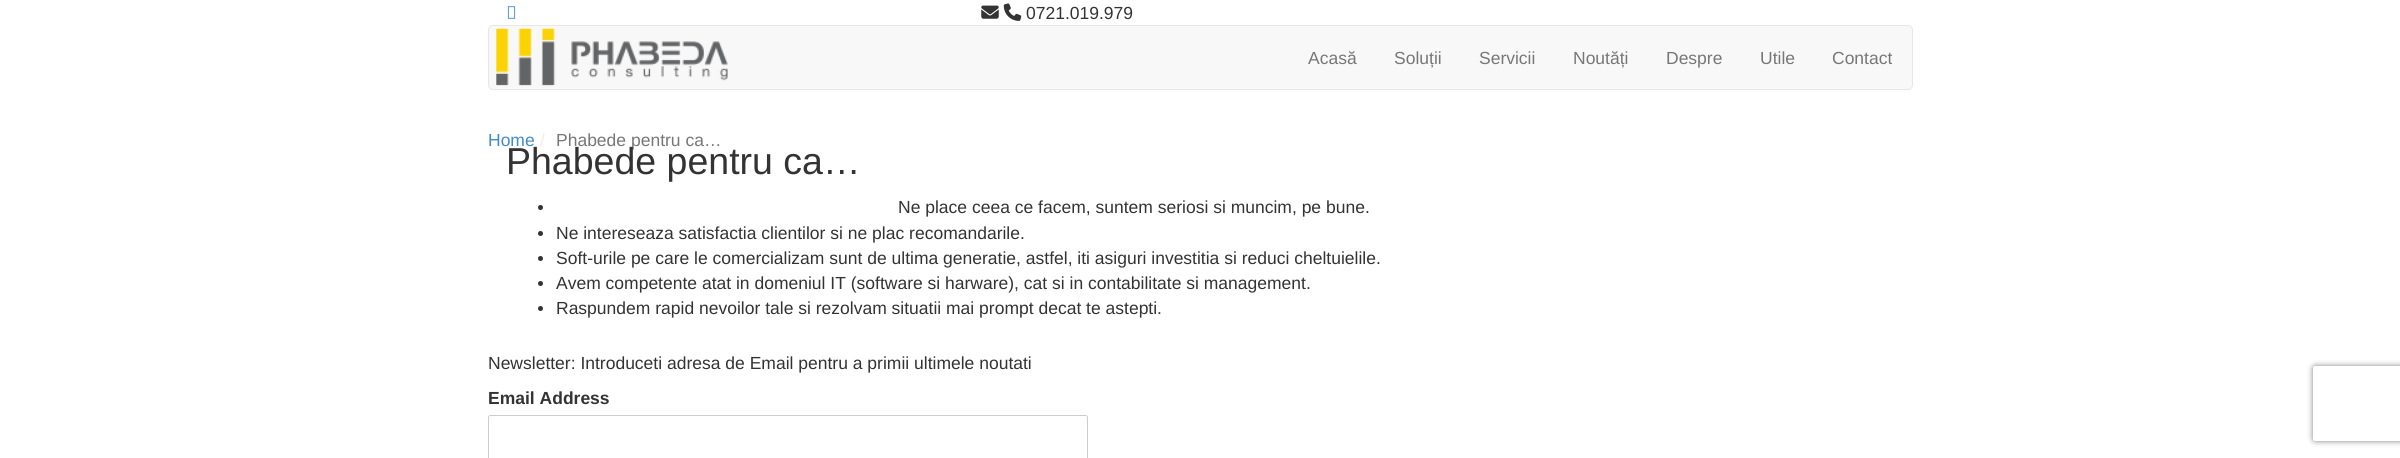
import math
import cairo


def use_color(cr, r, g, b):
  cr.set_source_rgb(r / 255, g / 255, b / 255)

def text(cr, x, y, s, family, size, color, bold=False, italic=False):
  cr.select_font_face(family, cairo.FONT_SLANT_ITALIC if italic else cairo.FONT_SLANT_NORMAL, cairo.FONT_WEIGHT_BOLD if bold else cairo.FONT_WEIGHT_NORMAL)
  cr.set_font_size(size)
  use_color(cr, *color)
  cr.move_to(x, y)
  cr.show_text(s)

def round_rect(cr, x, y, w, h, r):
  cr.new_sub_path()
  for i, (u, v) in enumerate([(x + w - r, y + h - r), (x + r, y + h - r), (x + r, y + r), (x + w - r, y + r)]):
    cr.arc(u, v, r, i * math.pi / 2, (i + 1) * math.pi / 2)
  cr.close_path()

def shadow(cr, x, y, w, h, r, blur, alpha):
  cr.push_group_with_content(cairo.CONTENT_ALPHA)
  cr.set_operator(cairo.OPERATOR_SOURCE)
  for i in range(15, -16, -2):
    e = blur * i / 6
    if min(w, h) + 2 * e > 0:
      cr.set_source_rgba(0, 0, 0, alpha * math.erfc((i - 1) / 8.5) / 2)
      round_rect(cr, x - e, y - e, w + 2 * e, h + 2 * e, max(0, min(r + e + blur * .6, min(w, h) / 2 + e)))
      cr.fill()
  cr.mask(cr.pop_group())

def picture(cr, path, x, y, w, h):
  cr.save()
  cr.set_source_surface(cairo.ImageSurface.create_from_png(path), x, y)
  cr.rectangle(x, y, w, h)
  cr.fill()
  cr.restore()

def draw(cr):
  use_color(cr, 255, 255, 255)
  cr.paint()
  picture(cr, "img_01.png", 507, 6, 9, 13)
  picture(cr, "img_02.png", 981, 5, 18, 14)
  picture(cr, "img_03.png", 1003, 3, 19, 18)
  use_color(cr, 248, 248, 248)
  round_rect(cr, 488.5, 25.5, 1424, 64, 4.5)
  cr.fill_preserve()
  use_color(cr, 231, 231, 231)
  cr.set_line_width(1)
  cr.stroke()
  picture(cr, "img_04.png", 496, 28, 232, 58)
  use_color(cr, 51, 51, 51)
  cr.arc(540.5, 207.5, 2.5, 0, 2 * math.pi)
  cr.fill()
  cr.arc(540.5, 233.5, 2.5, 0, 2 * math.pi)
  cr.fill()
  cr.arc(540.5, 258.5, 2.5, 0, 2 * math.pi)
  cr.fill()
  cr.arc(540.5, 283.5, 2.5, 0, 2 * math.pi)
  cr.fill()
  cr.arc(540.5, 308.5, 2.5, 0, 2 * math.pi)
  cr.fill()
  round_rect(cr, 488.5, 415.5, 599, 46, 2)
  use_color(cr, 204, 204, 204)
  cr.stroke()
  cr.save()
  cr.set_fill_rule(cairo.FILL_RULE_EVEN_ODD)
  cr.new_path()
  cr.move_to(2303, 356)
  cr.line_to(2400, 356)
  cr.line_to(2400, 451)
  cr.line_to(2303, 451)
  cr.close_path()
  cr.move_to(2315.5, 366)
  cr.line_to(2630.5, 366)
  cr.curve_to(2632, 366, 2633, 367, 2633, 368.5)
  cr.line_to(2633, 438.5)
  cr.curve_to(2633, 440, 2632, 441, 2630.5, 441)
  cr.line_to(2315.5, 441)
  cr.curve_to(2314, 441, 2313, 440, 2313, 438.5)
  cr.line_to(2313, 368.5)
  cr.curve_to(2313, 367, 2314, 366, 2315.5, 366)
  cr.close_path()
  cr.clip()
  use_color(cr, 128, 128, 128)
  shadow(cr, 2313, 366, 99, 75, 2.5, 3, 1)
  cr.restore()
  text(cr, 1026, 19, "0721.019.979", "Liberation Sans", 17.5, (51, 51, 51))
  text(cr, 1308, 64, "Acasă", "Liberation Sans", 17.5, (119, 119, 119))
  text(cr, 1394, 64, "Soluții", "Liberation Sans", 17.5, (119, 119, 119))
  text(cr, 1479, 64, "Servicii", "Liberation Sans", 17.5, (119, 119, 119))
  text(cr, 1573, 64, "Noutăți", "Liberation Sans", 17.5, (119, 119, 119))
  text(cr, 1666, 64, "Despre", "Liberation Sans", 17.5, (119, 119, 119))
  text(cr, 1760, 64, "Utile", "Liberation Sans", 17.5, (119, 119, 119))
  text(cr, 1832, 64, "Contact", "Liberation Sans", 17.5, (119, 119, 119))
  text(cr, 488, 146, "Home", "Liberation Sans", 17.5, (66, 139, 202))
  text(cr, 540, 146, "/", "Liberation Sans", 17.5, (237, 237, 237))
  text(cr, 556, 146, "Phabede pentru ca…", "Liberation Sans", 17.5, (119, 119, 119))
  text(cr, 506, 174, "Phabede pentru ca…", "Liberation Sans", 37.5, (51, 51, 51))
  text(cr, 898, 213, "Ne place ceea ce facem, suntem seriosi si muncim, pe bune.", "Liberation Sans", 17.5, (51, 51, 51))
  text(cr, 556, 239, "Ne intereseaza satisfactia clientilor si ne plac recomandarile.", "Liberation Sans", 17.5, (51, 51, 51))
  text(cr, 556, 264, "Soft-urile pe care le comercializam sunt de ultima generatie, astfel, iti asiguri investitia si reduci cheltuielile.", "Liberation Sans", 17.5, (51, 51, 51))
  text(cr, 556, 289, "Avem competente atat in domeniul IT (software si harware), cat si in contabilitate si management.", "Liberation Sans", 17.5, (51, 51, 51))
  text(cr, 556, 314, "Raspundem rapid nevoilor tale si rezolvam situatii mai prompt decat te astepti.", "Liberation Sans", 17.5, (51, 51, 51))
  text(cr, 488, 369, "Newsletter: Introduceti adresa de Email pentru a primii ultimele noutati", "Liberation Sans", 17.5, (51, 51, 51))
  text(cr, 488, 404, "Email Address", "Liberation Sans", 17.5, (51, 51, 51), bold=True)


surface = cairo.ImageSurface(cairo.FORMAT_RGB24, 2400, 458)
cr = cairo.Context(surface)
options = cairo.FontOptions()
options.set_hint_metrics(cairo.HINT_METRICS_OFF)
options.set_hint_style(cairo.HINT_STYLE_NONE)
cr.set_font_options(options)
cr.set_miter_limit(4)
draw(cr)
surface.write_to_png("out.png")
